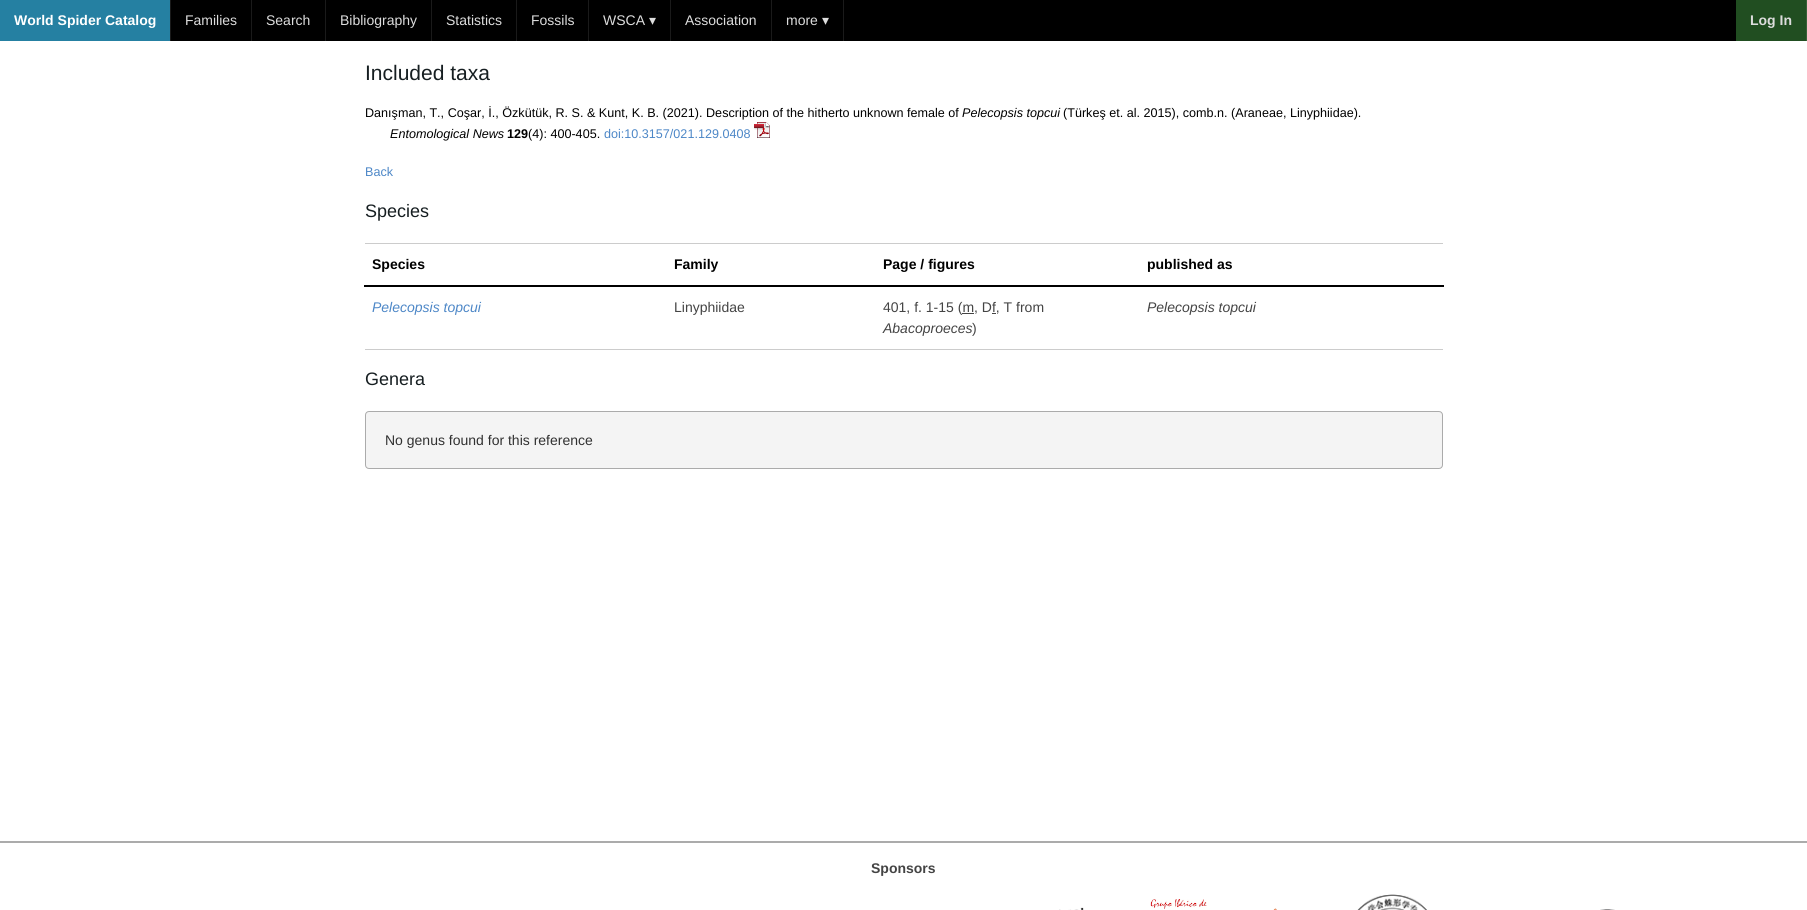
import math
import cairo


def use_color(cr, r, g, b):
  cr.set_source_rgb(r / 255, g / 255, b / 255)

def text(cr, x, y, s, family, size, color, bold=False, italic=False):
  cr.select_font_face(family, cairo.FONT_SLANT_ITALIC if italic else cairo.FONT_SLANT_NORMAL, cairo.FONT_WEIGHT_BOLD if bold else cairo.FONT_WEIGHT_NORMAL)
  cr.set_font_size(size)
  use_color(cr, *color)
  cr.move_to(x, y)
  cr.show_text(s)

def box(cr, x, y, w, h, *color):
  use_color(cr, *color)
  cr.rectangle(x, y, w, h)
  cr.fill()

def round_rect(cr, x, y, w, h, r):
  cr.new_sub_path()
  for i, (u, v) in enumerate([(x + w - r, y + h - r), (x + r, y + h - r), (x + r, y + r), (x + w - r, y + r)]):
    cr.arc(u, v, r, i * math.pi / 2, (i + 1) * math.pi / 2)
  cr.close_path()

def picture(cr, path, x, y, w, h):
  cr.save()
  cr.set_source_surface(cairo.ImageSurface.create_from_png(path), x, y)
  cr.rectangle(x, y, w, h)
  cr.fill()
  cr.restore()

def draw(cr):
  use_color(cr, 255, 255, 255)
  cr.paint()
  box(cr, 171, 0, 1565, 41, 0, 0, 0)
  box(cr, 170, 0, 1, 41, 26, 26, 26)
  box(cr, 0, 0, 170, 41, 37, 128, 162)
  box(cr, 251, 0, 1, 41, 26, 26, 26)
  box(cr, 325, 0, 1, 41, 26, 26, 26)
  box(cr, 431, 0, 1, 41, 26, 26, 26)
  box(cr, 516, 0, 1, 41, 26, 26, 26)
  box(cr, 588, 0, 1, 41, 26, 26, 26)
  box(cr, 670, 0, 1, 41, 26, 26, 26)
  box(cr, 771, 0, 1, 41, 26, 26, 26)
  box(cr, 843, 0, 1, 41, 26, 26, 26)
  box(cr, 1736, 0, 70, 41, 33, 78, 33)
  box(cr, 1806, 0, 1, 41, 55, 96, 55)
  picture(cr, "img_01.png", 754, 122, 16, 16)
  box(cr, 365, 243, 1078, 1, 204, 204, 204)
  box(cr, 365, 349, 1078, 1, 204, 204, 204)
  box(cr, 364, 285, 1080, 2, 0, 0, 0)
  box(cr, 962, 313, 12, 1, 68, 68, 68)
  box(cr, 992, 313, 4, 1, 68, 68, 68)
  use_color(cr, 244, 244, 244)
  round_rect(cr, 365, 411, 1078, 58, 4)
  cr.fill()
  round_rect(cr, 365.5, 411.5, 1077, 57, 3.5)
  cr.set_source_rgba(0, 0, 0, 0.3)
  cr.set_line_width(1)
  cr.stroke()
  box(cr, 0, 841, 1807, 2, 171, 171, 171)
  picture(cr, "img_02.png", 1059, 907, 25, 3)
  picture(cr, "img_03.png", 1150, 899, 57, 10)
  picture(cr, "img_04.png", 1273, 908, 4, 2)
  picture(cr, "img_05.png", 1357, 894, 70, 16)
  picture(cr, "img_06.png", 1600, 909, 15, 1)
  text(cr, 14, 25, "World Spider Catalog", "Liberation Sans", 14, (255, 255, 255), bold=True)
  text(cr, 185, 25, "Families", "Liberation Sans", 14, (221, 221, 221))
  text(cr, 266, 25, "Search", "Liberation Sans", 14, (221, 221, 221))
  text(cr, 340, 25, "Bibliography", "Liberation Sans", 14, (221, 221, 221))
  text(cr, 446, 25, "Statistics", "Liberation Sans", 14, (221, 221, 221))
  text(cr, 531, 25, "Fossils", "Liberation Sans", 14, (221, 221, 221))
  text(cr, 603, 25, "WSCA", "Liberation Sans", 14, (221, 221, 221))
  text(cr, 649, 25, "▾", "DejaVu Sans", 14, (221, 221, 221))
  text(cr, 685, 25, "Association", "Liberation Sans", 14, (221, 221, 221))
  text(cr, 786, 25, "more", "Liberation Sans", 14, (221, 221, 221))
  text(cr, 822, 25, "▾", "DejaVu Sans", 14, (221, 221, 221))
  text(cr, 1750, 25, "Log In", "Liberation Sans", 14, (221, 221, 221), bold=True)
  text(cr, 365, 80, "Included taxa", "Liberation Sans", 21, (22, 30, 33))
  text(cr, 365, 117, "Danışman, T., Coşar, İ., Özkütük, R. S. & Kunt, K. B. (2021). Description of the hitherto unknown female of", "Liberation Sans", 12.6, (0, 0, 0))
  text(cr, 962, 117, "Pelecopsis topcui", "Liberation Sans", 12.6, (0, 0, 0), italic=True)
  text(cr, 1063, 117, "(Türkeş et. al. 2015), comb.n. (Araneae, Linyphiidae).", "Liberation Sans", 12.6, (0, 0, 0))
  text(cr, 390, 138, "Entomological News", "Liberation Sans", 12.6, (0, 0, 0), italic=True)
  text(cr, 507, 138, "129", "Liberation Sans", 12.6, (0, 0, 0), bold=True)
  text(cr, 528, 138, "(4): 400-405.", "Liberation Sans", 12.6, (0, 0, 0))
  text(cr, 604, 138, "doi:10.3157/021.129.0408", "Liberation Sans", 12.6, (77, 135, 199))
  text(cr, 365, 176, "Back", "Liberation Sans", 12.6, (77, 135, 199))
  text(cr, 365, 217, "Species", "Liberation Sans", 18, (22, 30, 33))
  text(cr, 372, 269, "Species", "Liberation Sans", 14, (0, 0, 0), bold=True)
  text(cr, 674, 269, "Family", "Liberation Sans", 14, (0, 0, 0), bold=True)
  text(cr, 883, 269, "Page / figures", "Liberation Sans", 14, (0, 0, 0), bold=True)
  text(cr, 1147, 269, "published as", "Liberation Sans", 14, (0, 0, 0), bold=True)
  text(cr, 372, 312, "Pelecopsis topcui", "Liberation Sans", 14, (77, 135, 199), italic=True)
  text(cr, 674, 312, "Linyphiidae", "Liberation Sans", 14, (68, 68, 68))
  text(cr, 883, 312, "401, f. 1-15 (m, Df, T from", "Liberation Sans", 14, (68, 68, 68))
  text(cr, 883, 333, "Abacoproeces", "Liberation Sans", 14, (68, 68, 68), italic=True)
  text(cr, 972, 333, ")", "Liberation Sans", 14, (68, 68, 68))
  text(cr, 1147, 312, "Pelecopsis topcui", "Liberation Sans", 14, (68, 68, 68), italic=True)
  text(cr, 365, 385, "Genera", "Liberation Sans", 18, (22, 30, 33))
  text(cr, 385, 445, "No genus found for this reference", "Liberation Sans", 14, (49, 49, 49))
  text(cr, 871, 873, "Sponsors", "Liberation Sans", 14, (68, 68, 68), bold=True)


surface = cairo.ImageSurface(cairo.FORMAT_RGB24, 1807, 910)
cr = cairo.Context(surface)
options = cairo.FontOptions()
options.set_hint_metrics(cairo.HINT_METRICS_OFF)
options.set_hint_style(cairo.HINT_STYLE_NONE)
cr.set_font_options(options)
cr.set_miter_limit(4)
draw(cr)
surface.write_to_png("out.png")
